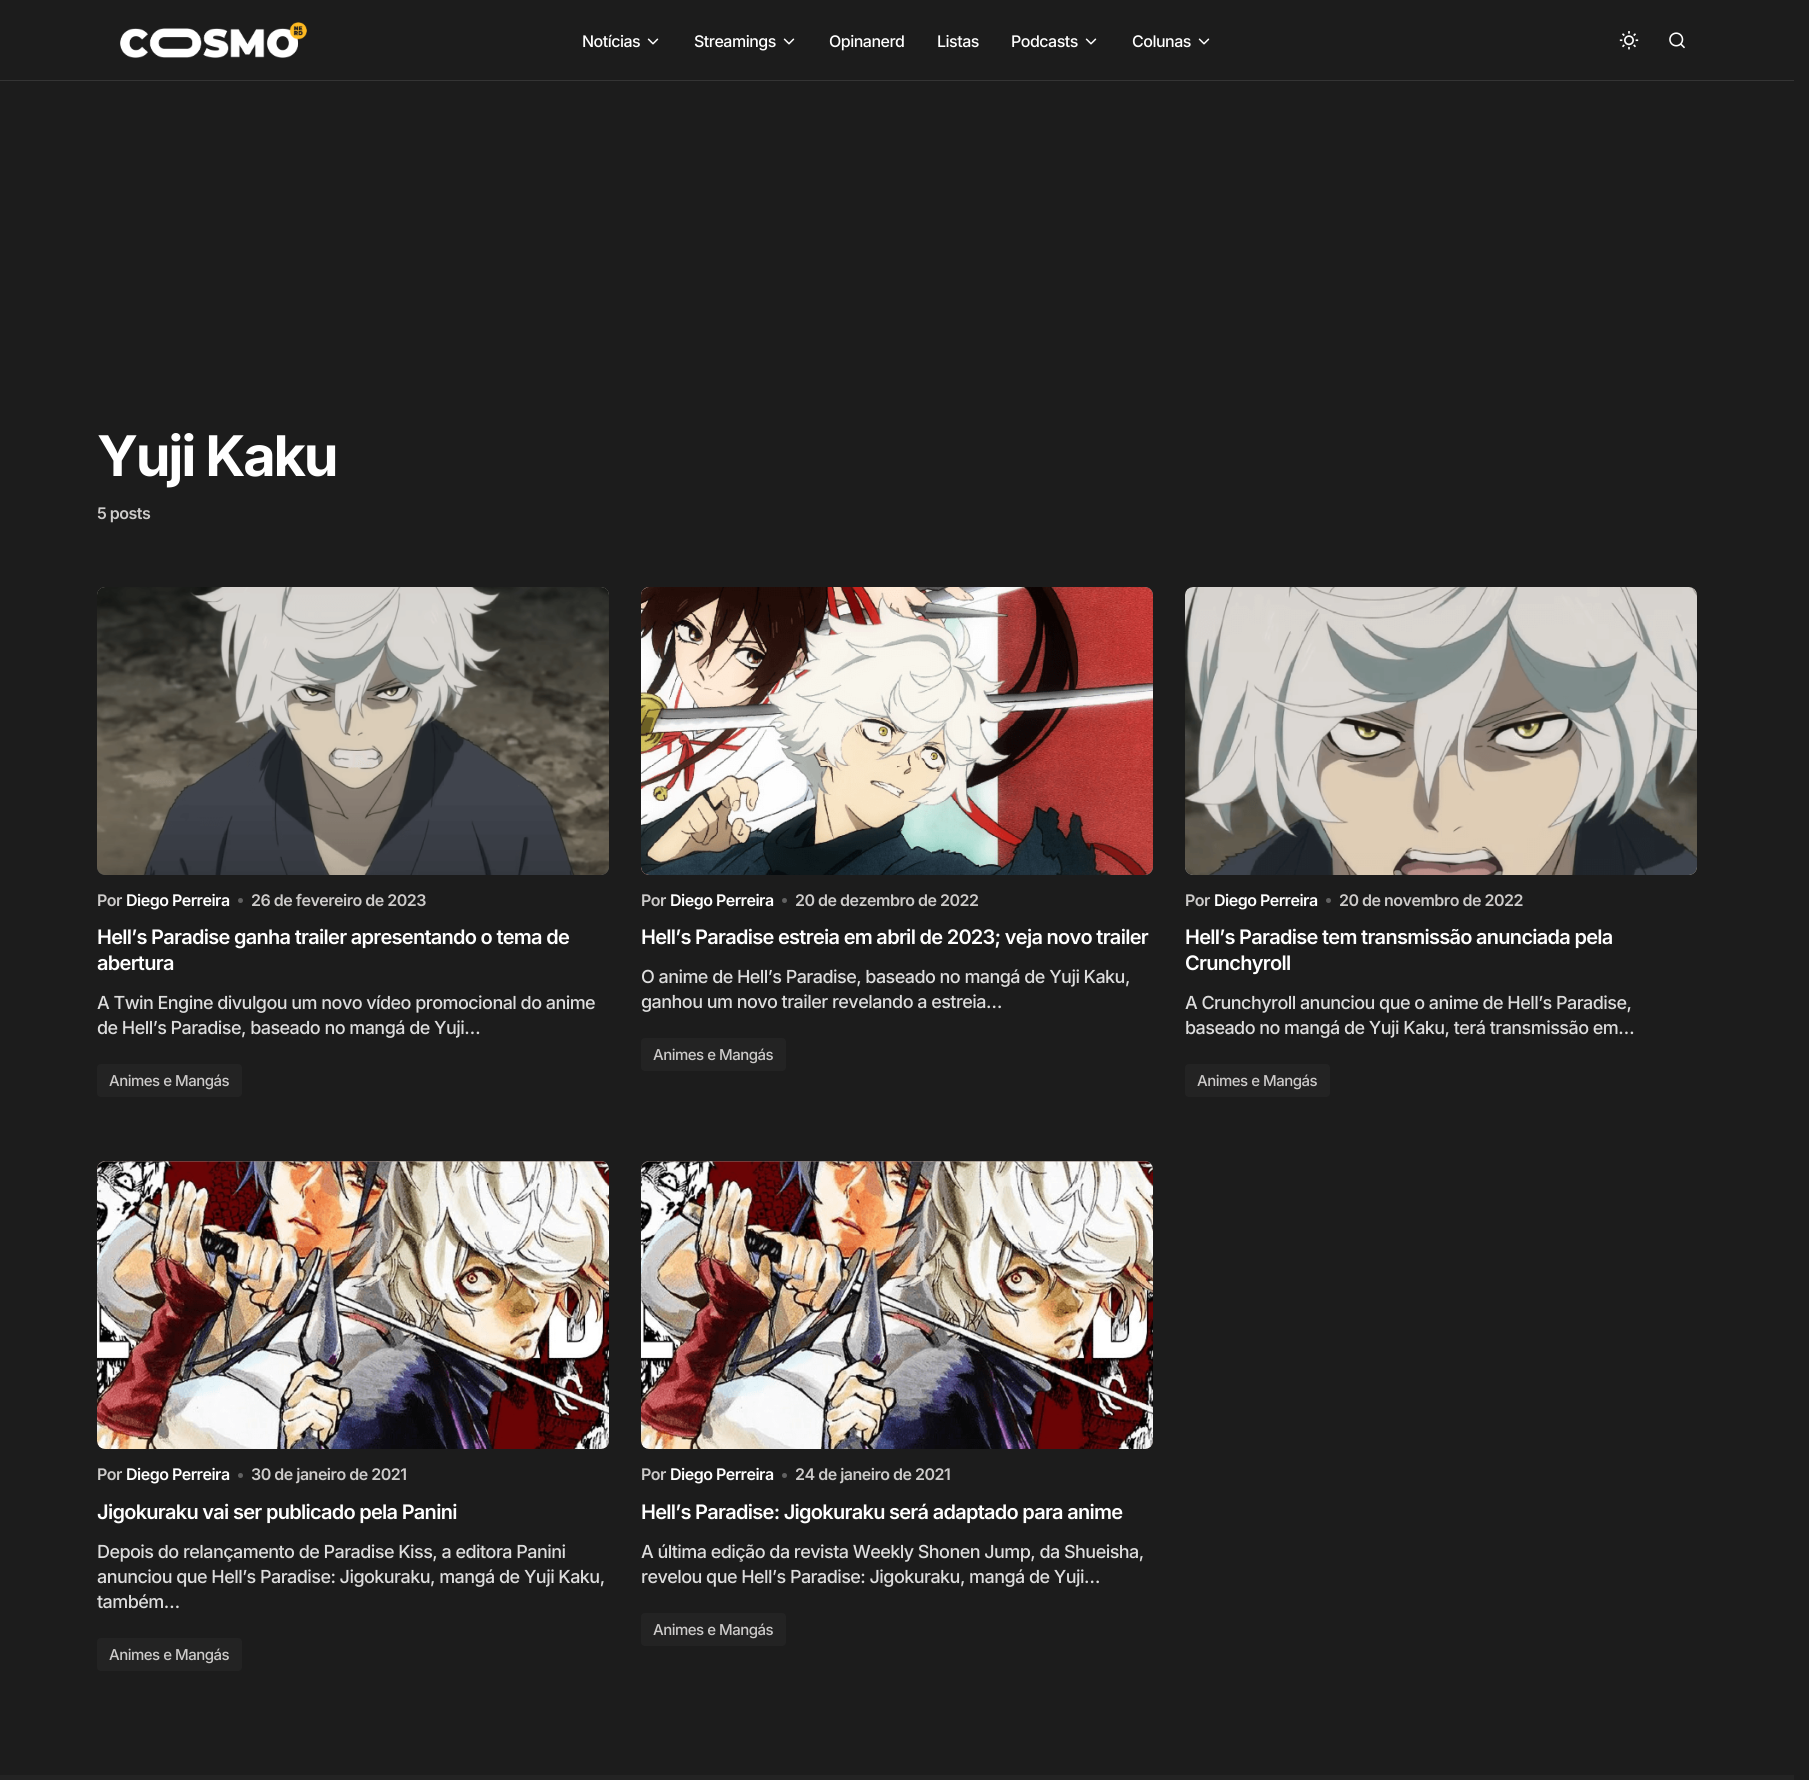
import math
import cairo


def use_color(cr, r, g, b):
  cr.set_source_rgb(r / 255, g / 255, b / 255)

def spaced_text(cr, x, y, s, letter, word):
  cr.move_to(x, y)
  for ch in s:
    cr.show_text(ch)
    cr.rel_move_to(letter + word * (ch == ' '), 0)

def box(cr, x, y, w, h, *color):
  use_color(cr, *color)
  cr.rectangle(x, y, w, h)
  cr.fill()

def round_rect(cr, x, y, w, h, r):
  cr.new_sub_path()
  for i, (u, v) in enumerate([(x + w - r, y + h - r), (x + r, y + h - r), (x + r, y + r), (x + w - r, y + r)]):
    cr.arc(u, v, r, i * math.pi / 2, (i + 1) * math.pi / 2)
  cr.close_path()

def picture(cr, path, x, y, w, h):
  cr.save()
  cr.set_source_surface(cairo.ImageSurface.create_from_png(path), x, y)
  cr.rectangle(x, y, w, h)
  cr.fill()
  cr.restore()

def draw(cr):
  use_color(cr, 28, 28, 28)
  cr.paint()
  picture(cr, "img_01.png", 120, 22, 187, 36)
  picture(cr, "img_02.png", 647, 38, 12, 7)
  picture(cr, "img_02.png", 783, 38, 12, 7)
  picture(cr, "img_02.png", 1085, 38, 12, 7)
  picture(cr, "img_02.png", 1198, 38, 12, 7)
  picture(cr, "img_03.png", 1619, 31, 20, 19)
  picture(cr, "img_04.png", 1669, 32, 16, 17)
  box(cr, 0, 80, 1794, 1, 52, 52, 52)
  use_color(cr, 91, 89, 83)
  round_rect(cr, 97, 587, 512, 288, 8)
  cr.fill()
  picture(cr, "img_05.png", 97, 587, 512, 288)
  use_color(cr, 97, 97, 97)
  cr.arc(240.5, 900.5, 2.5, 0, 2 * math.pi)
  cr.fill()
  use_color(cr, 35, 35, 35)
  round_rect(cr, 97, 1064, 145, 33, 4)
  cr.fill()
  use_color(cr, 152, 115, 110)
  round_rect(cr, 641, 587, 512, 288, 8)
  cr.fill()
  picture(cr, "img_06.png", 641, 587, 512, 288)
  use_color(cr, 97, 97, 97)
  cr.arc(784.5, 900.5, 2.5, 0, 2 * math.pi)
  cr.fill()
  use_color(cr, 35, 35, 35)
  round_rect(cr, 641, 1038, 145, 33, 4)
  cr.fill()
  use_color(cr, 127, 124, 118)
  round_rect(cr, 1185, 587, 512, 288, 8)
  cr.fill()
  picture(cr, "img_07.png", 1185, 587, 512, 288)
  use_color(cr, 97, 97, 97)
  cr.arc(1328.5, 900.5, 2.5, 0, 2 * math.pi)
  cr.fill()
  use_color(cr, 35, 35, 35)
  round_rect(cr, 1185, 1064, 145, 33, 4)
  cr.fill()
  use_color(cr, 132, 116, 112)
  round_rect(cr, 97, 1161, 512, 288, 8)
  cr.fill()
  picture(cr, "img_08.png", 97, 1161, 512, 288)
  use_color(cr, 97, 97, 97)
  cr.arc(240.5, 1475.5, 2.5, 0, 2 * math.pi)
  cr.fill()
  use_color(cr, 35, 35, 35)
  round_rect(cr, 97, 1638, 145, 33, 4)
  cr.fill()
  use_color(cr, 132, 116, 112)
  round_rect(cr, 641, 1161, 512, 288, 8)
  cr.fill()
  picture(cr, "img_08.png", 641, 1161, 512, 288)
  use_color(cr, 97, 97, 97)
  cr.arc(784.5, 1475.5, 2.5, 0, 2 * math.pi)
  cr.fill()
  use_color(cr, 35, 35, 35)
  round_rect(cr, 641, 1613, 145, 33, 4)
  cr.fill()
  box(cr, 0, 1775, 1794, 5, 35, 35, 35)
  cr.select_font_face("Inter Medium")
  cr.set_font_size(16)
  use_color(cr, 255, 255, 255)
  spaced_text(cr, 582, 47, "Notícias", -0.5, 0)
  spaced_text(cr, 694, 47, "Streamings", -0.5, 0)
  spaced_text(cr, 829, 47, "Opinanerd", -0.5, 0)
  spaced_text(cr, 937, 47, "Listas", -0.5, 0)
  spaced_text(cr, 1011, 47, "Podcasts", -0.5, 0)
  spaced_text(cr, 1132, 47, "Colunas", -0.5, 0)
  cr.select_font_face("Inter", cairo.FONT_SLANT_NORMAL, cairo.FONT_WEIGHT_BOLD)
  cr.set_font_size(56)
  spaced_text(cr, 97, 476, "Yuji Kaku", -2.25, 0)
  cr.select_font_face("Inter SemiBold")
  cr.set_font_size(16)
  use_color(cr, 205, 203, 202)
  spaced_text(cr, 97, 519, "5 posts", -0.5, 0)
  spaced_text(cr, 97, 906, "Por", -0.5, 0)
  use_color(cr, 255, 255, 255)
  spaced_text(cr, 126, 906, "Diego Perreira", -0.5, 0)
  use_color(cr, 205, 203, 202)
  spaced_text(cr, 251, 906, "26 de fevereiro de 2023", -0.5, 0)
  cr.set_font_size(20)
  use_color(cr, 255, 255, 255)
  spaced_text(cr, 97, 944, "Hell’s Paradise ganha trailer apresentando o tema de", -0.72, 0)
  spaced_text(cr, 97, 970, "abertura", -0.72, 0)
  cr.select_font_face("Inter Medium")
  cr.set_font_size(18)
  use_color(cr, 221, 221, 221)
  spaced_text(cr, 97, 1009, "A Twin Engine divulgou um novo vídeo promocional do anime", -0.55, 0)
  spaced_text(cr, 97, 1034, "de Hell’s Paradise, baseado no mangá de Yuji…", -0.55, 0)
  cr.set_font_size(15)
  use_color(cr, 205, 203, 202)
  spaced_text(cr, 109, 1086, "Animes e Mangás", -0.5, 0)
  cr.select_font_face("Inter SemiBold")
  cr.set_font_size(16)
  spaced_text(cr, 641, 906, "Por", -0.5, 0)
  use_color(cr, 255, 255, 255)
  spaced_text(cr, 670, 906, "Diego Perreira", -0.5, 0)
  use_color(cr, 205, 203, 202)
  spaced_text(cr, 795, 906, "20 de dezembro de 2022", -0.5, 0)
  cr.set_font_size(20)
  use_color(cr, 255, 255, 255)
  spaced_text(cr, 641, 944, "Hell’s Paradise estreia em abril de 2023; veja novo trailer", -0.72, 0)
  cr.select_font_face("Inter Medium")
  cr.set_font_size(18)
  use_color(cr, 221, 221, 221)
  spaced_text(cr, 641, 983, "O anime de Hell’s Paradise, baseado no mangá de Yuji Kaku,", -0.55, 0)
  spaced_text(cr, 641, 1008, "ganhou um novo trailer revelando a estreia…", -0.55, 0)
  cr.set_font_size(15)
  use_color(cr, 205, 203, 202)
  spaced_text(cr, 653, 1060, "Animes e Mangás", -0.5, 0)
  cr.select_font_face("Inter SemiBold")
  cr.set_font_size(16)
  spaced_text(cr, 1185, 906, "Por", -0.5, 0)
  use_color(cr, 255, 255, 255)
  spaced_text(cr, 1214, 906, "Diego Perreira", -0.5, 0)
  use_color(cr, 205, 203, 202)
  spaced_text(cr, 1339, 906, "20 de novembro de 2022", -0.5, 0)
  cr.set_font_size(20)
  use_color(cr, 255, 255, 255)
  spaced_text(cr, 1185, 944, "Hell’s Paradise tem transmissão anunciada pela", -0.72, 0)
  spaced_text(cr, 1185, 970, "Crunchyroll", -0.72, 0)
  cr.select_font_face("Inter Medium")
  cr.set_font_size(18)
  use_color(cr, 221, 221, 221)
  spaced_text(cr, 1185, 1009, "A Crunchyroll anunciou que o anime de Hell’s Paradise,", -0.55, 0)
  spaced_text(cr, 1185, 1034, "baseado no mangá de Yuji Kaku, terá transmissão em…", -0.55, 0)
  cr.set_font_size(15)
  use_color(cr, 205, 203, 202)
  spaced_text(cr, 1197, 1086, "Animes e Mangás", -0.5, 0)
  cr.select_font_face("Inter SemiBold")
  cr.set_font_size(16)
  spaced_text(cr, 97, 1480, "Por", -0.5, 0)
  use_color(cr, 255, 255, 255)
  spaced_text(cr, 126, 1480, "Diego Perreira", -0.5, 0)
  use_color(cr, 205, 203, 202)
  spaced_text(cr, 251, 1480, "30 de janeiro de 2021", -0.5, 0)
  cr.set_font_size(20)
  use_color(cr, 255, 255, 255)
  spaced_text(cr, 97, 1519, "Jigokuraku vai ser publicado pela Panini", -0.72, 0)
  cr.select_font_face("Inter Medium")
  cr.set_font_size(18)
  use_color(cr, 221, 221, 221)
  spaced_text(cr, 97, 1558, "Depois do relançamento de Paradise Kiss, a editora Panini", -0.55, 0)
  spaced_text(cr, 97, 1583, "anunciou que Hell’s Paradise: Jigokuraku, mangá de Yuji Kaku,", -0.55, 0)
  spaced_text(cr, 97, 1608, "também…", -0.55, 0)
  cr.set_font_size(15)
  use_color(cr, 205, 203, 202)
  spaced_text(cr, 109, 1660, "Animes e Mangás", -0.5, 0)
  cr.select_font_face("Inter SemiBold")
  cr.set_font_size(16)
  spaced_text(cr, 641, 1480, "Por", -0.5, 0)
  use_color(cr, 255, 255, 255)
  spaced_text(cr, 670, 1480, "Diego Perreira", -0.5, 0)
  use_color(cr, 205, 203, 202)
  spaced_text(cr, 795, 1480, "24 de janeiro de 2021", -0.5, 0)
  cr.set_font_size(20)
  use_color(cr, 255, 255, 255)
  spaced_text(cr, 641, 1519, "Hell’s Paradise: Jigokuraku será adaptado para anime", -0.72, 0)
  cr.select_font_face("Inter Medium")
  cr.set_font_size(18)
  use_color(cr, 221, 221, 221)
  spaced_text(cr, 641, 1558, "A última edição da revista Weekly Shonen Jump, da Shueisha,", -0.55, 0)
  spaced_text(cr, 641, 1583, "revelou que Hell’s Paradise: Jigokuraku, mangá de Yuji…", -0.55, 0)
  cr.set_font_size(15)
  use_color(cr, 205, 203, 202)
  spaced_text(cr, 653, 1635, "Animes e Mangás", -0.5, 0)


surface = cairo.ImageSurface(cairo.FORMAT_RGB24, 1809, 1780)
cr = cairo.Context(surface)
options = cairo.FontOptions()
options.set_hint_metrics(cairo.HINT_METRICS_OFF)
options.set_hint_style(cairo.HINT_STYLE_NONE)
cr.set_font_options(options)
cr.set_miter_limit(4)
draw(cr)
surface.write_to_png("out.png")
